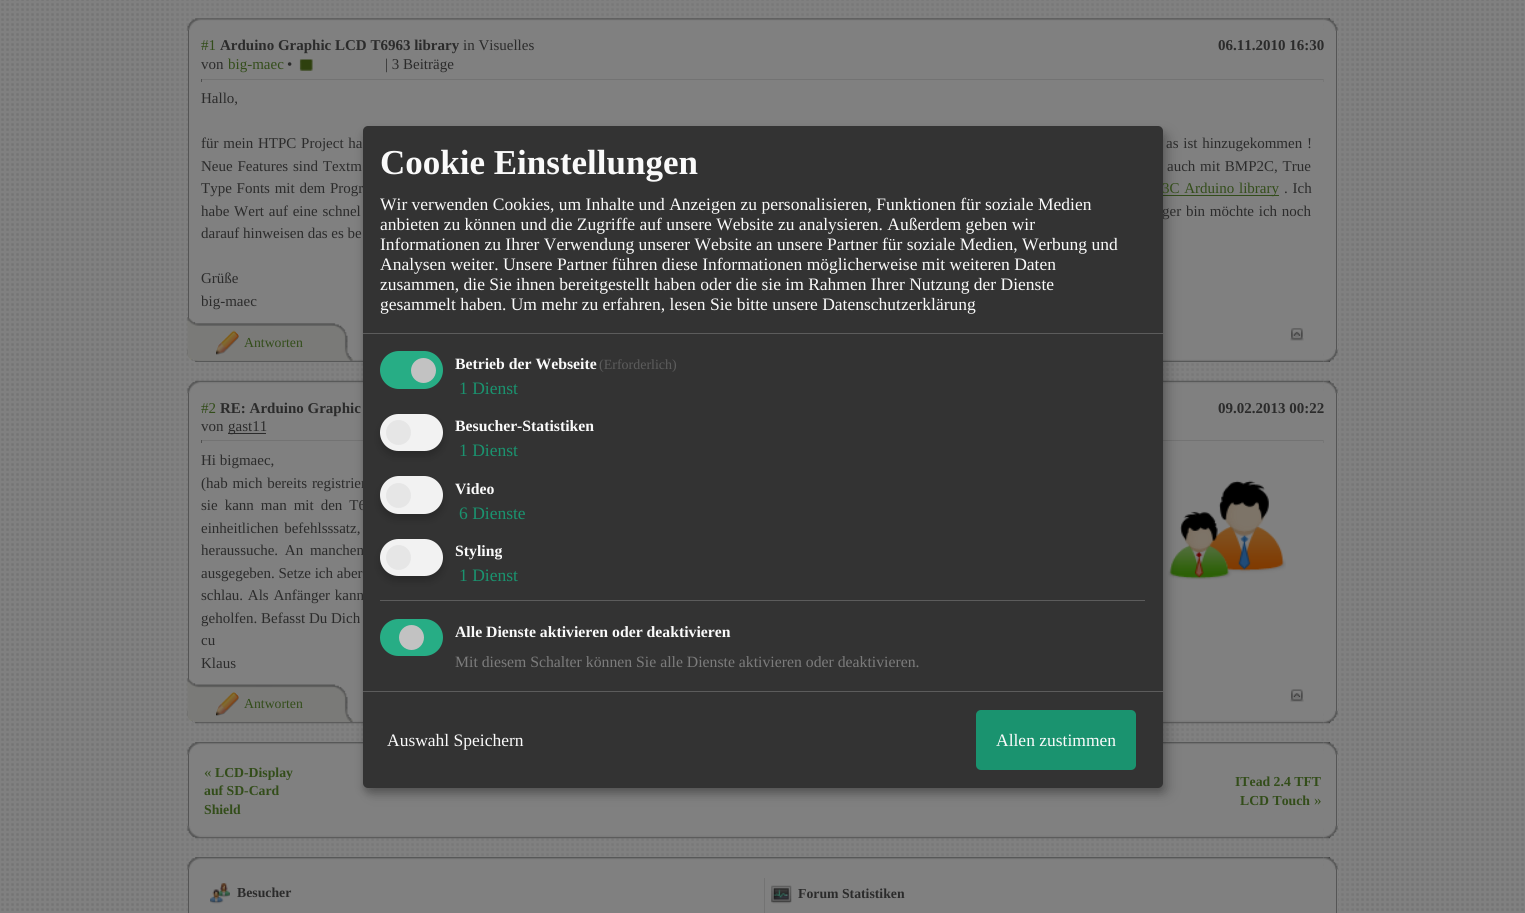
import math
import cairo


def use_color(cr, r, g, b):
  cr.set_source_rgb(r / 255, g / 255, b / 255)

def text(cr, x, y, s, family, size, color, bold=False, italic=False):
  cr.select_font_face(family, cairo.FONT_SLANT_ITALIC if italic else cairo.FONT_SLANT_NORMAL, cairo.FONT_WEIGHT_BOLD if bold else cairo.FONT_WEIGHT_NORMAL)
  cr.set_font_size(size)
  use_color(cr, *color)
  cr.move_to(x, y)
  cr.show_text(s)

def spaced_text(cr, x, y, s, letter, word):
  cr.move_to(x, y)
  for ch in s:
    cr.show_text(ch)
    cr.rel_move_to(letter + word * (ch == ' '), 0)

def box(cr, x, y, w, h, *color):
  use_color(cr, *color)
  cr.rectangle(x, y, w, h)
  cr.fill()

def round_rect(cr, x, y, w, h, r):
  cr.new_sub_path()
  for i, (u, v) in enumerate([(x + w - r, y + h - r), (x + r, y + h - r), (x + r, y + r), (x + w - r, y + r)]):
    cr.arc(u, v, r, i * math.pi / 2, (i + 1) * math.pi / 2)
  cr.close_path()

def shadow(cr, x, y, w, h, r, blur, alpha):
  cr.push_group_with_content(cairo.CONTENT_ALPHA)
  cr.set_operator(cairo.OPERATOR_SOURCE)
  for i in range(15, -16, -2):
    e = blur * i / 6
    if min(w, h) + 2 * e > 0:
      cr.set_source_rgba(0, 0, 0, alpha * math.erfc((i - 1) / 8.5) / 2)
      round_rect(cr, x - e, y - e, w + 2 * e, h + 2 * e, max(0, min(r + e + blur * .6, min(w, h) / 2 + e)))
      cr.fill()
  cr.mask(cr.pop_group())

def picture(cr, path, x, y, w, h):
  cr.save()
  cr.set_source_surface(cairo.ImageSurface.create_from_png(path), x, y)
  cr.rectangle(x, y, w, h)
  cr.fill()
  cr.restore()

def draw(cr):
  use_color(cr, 128, 128, 128)
  cr.paint()
  picture(cr, "img_01.png", 1, 0, 1523, 911)
  picture(cr, "img_02.png", 172, 0, 1181, 911)
  picture(cr, "img_03.png", 187, 18, 1137, 13)
  box(cr, 189, 30, 1149, 321, 128, 128, 128)
  box(cr, 1336, 30, 1, 321, 85, 85, 85)
  picture(cr, "img_04.png", 1323, 18, 15, 13)
  box(cr, 188, 30, 1, 289, 85, 85, 85)
  picture(cr, "img_05.png", 299, 59, 14, 12)
  box(cr, 201, 79, 1123, 1, 115, 115, 115)
  box(cr, 1323, 79, 1, 3, 119, 119, 119)
  box(cr, 201, 79, 1, 3, 80, 80, 80)
  box(cr, 1163, 195, 116, 1, 51, 77, 26)
  picture(cr, "img_06.png", 1290, 328, 14, 13)
  picture(cr, "img_09.png", 187, 349, 1137, 13)
  picture(cr, "img_07.png", 187, 317, 166, 44)
  picture(cr, "img_08.png", 216, 330, 23, 25)
  picture(cr, "img_10.png", 1324, 349, 14, 13)
  picture(cr, "img_11.png", 187, 380, 1137, 14)
  box(cr, 191, 393, 1147, 318, 128, 128, 128)
  box(cr, 1336, 393, 1, 320, 85, 85, 85)
  picture(cr, "img_12.png", 1324, 380, 14, 14)
  box(cr, 188, 393, 1, 287, 85, 85, 85)
  box(cr, 228, 433, 38, 1, 43, 43, 43)
  box(cr, 201, 440, 1123, 1, 115, 115, 115)
  box(cr, 1323, 440, 1, 3, 119, 119, 119)
  box(cr, 201, 440, 1, 3, 80, 80, 80)
  picture(cr, "img_13.png", 1168, 480, 118, 100)
  picture(cr, "img_14.png", 1290, 689, 14, 13)
  picture(cr, "img_17.png", 187, 710, 1137, 14)
  picture(cr, "img_15.png", 187, 678, 166, 44)
  picture(cr, "img_16.png", 216, 692, 23, 24)
  picture(cr, "img_18.png", 1324, 710, 14, 14)
  picture(cr, "img_19.png", 187, 742, 1137, 13)
  box(cr, 189, 754, 1149, 72, 128, 128, 128)
  box(cr, 1336, 754, 1, 74, 85, 85, 85)
  picture(cr, "img_20.png", 1324, 742, 14, 13)
  box(cr, 188, 754, 1, 74, 85, 85, 85)
  picture(cr, "img_17.png", 187, 825, 1137, 14)
  picture(cr, "img_18.png", 1324, 825, 14, 14)
  picture(cr, "img_19.png", 187, 857, 1137, 13)
  box(cr, 189, 869, 1149, 42, 128, 128, 128)
  box(cr, 1336, 869, 1, 44, 85, 85, 85)
  picture(cr, "img_20.png", 1324, 857, 14, 13)
  box(cr, 188, 869, 1, 44, 85, 85, 85)
  picture(cr, "img_21.png", 210, 883, 20, 21)
  box(cr, 764, 878, 1, 35, 115, 115, 115)
  picture(cr, "img_22.png", 771, 885, 21, 19)
  use_color(cr, 0, 0, 0)
  shadow(cr, 369, 133, 800, 661, 5, 6, 0.19)
  shadow(cr, 363, 131, 800, 662, 5, 4, 0.2)
  text(cr, 201, 50, "#1", "Liberation Serif", 15, (51, 77, 26))
  text(cr, 220, 50, "Arduino Graphic LCD T6963 library", "Liberation Serif", 15, (43, 43, 43), bold=True)
  text(cr, 463, 50, "in Visuelles", "Liberation Serif", 15, (43, 43, 43))
  text(cr, 1218, 50, "06.11.2010 16:30", "Liberation Serif", 15, (43, 43, 43), bold=True)
  text(cr, 201, 69, "von", "Liberation Serif", 15, (43, 43, 43))
  text(cr, 228, 69, "big-maec", "Liberation Serif", 15, (51, 77, 26))
  text(cr, 287, 69, "•", "Liberation Serif", 15, (43, 43, 43))
  text(cr, 385, 69, "| 3 Beiträge", "Liberation Serif", 15, (43, 43, 43))
  text(cr, 201, 103, "Hallo,", "Liberation Serif", 15, (43, 43, 43))
  spaced_text(cr, 201, 148, "für mein HTPC Project ha", 0, 1)
  spaced_text(cr, 1166, 148, "as ist hinzugekommen !", 0, 1)
  spaced_text(cr, 201, 171, "Neue Features sind Textm", 0, 1)
  spaced_text(cr, 1167, 171, "auch mit BMP2C, True", 0, 1)
  spaced_text(cr, 201, 193, "Type Fonts mit dem Progr", 0, 1)
  use_color(cr, 51, 77, 26)
  spaced_text(cr, 1162, 193, "3C Arduino library", 0, 1)
  use_color(cr, 43, 43, 43)
  spaced_text(cr, 1284, 193, ". Ich", 0, 1)
  spaced_text(cr, 201, 216, "habe Wert auf eine schnel", 0, 1)
  spaced_text(cr, 1162, 216, "ger bin möchte ich noch", 0, 1)
  text(cr, 201, 238, "darauf hinweisen das es be", "Liberation Serif", 15, (43, 43, 43))
  text(cr, 201, 283, "Grüße", "Liberation Serif", 15, (43, 43, 43))
  text(cr, 201, 306, "big-maec", "Liberation Serif", 15, (43, 43, 43))
  text(cr, 244, 347, "Antworten", "Liberation Serif", 13.75, (51, 77, 26))
  text(cr, 201, 413, "#2", "Liberation Serif", 15, (51, 77, 26))
  text(cr, 220, 413, "RE: Arduino Graphic", "Liberation Serif", 15, (43, 43, 43), bold=True)
  text(cr, 1218, 413, "09.02.2013 00:22", "Liberation Serif", 15, (43, 43, 43), bold=True)
  text(cr, 201, 431, "von", "Liberation Serif", 15, (43, 43, 43))
  text(cr, 228, 431, "gast11", "Liberation Serif", 15, (43, 43, 43))
  text(cr, 201, 465, "Hi bigmaec,", "Liberation Serif", 15, (43, 43, 43))
  spaced_text(cr, 201, 488, "(hab mich bereits registrier", 0, 1)
  spaced_text(cr, 201, 510, "sie kann man mit den T6", 0, 3.25)
  spaced_text(cr, 201, 533, "einheitlichen befehlsssatz,", 0, 2)
  spaced_text(cr, 201, 555, "heraussuche. An manchen", 0, 3)
  text(cr, 201, 578, "ausgegeben. Setze ich aber", "Liberation Serif", 15, (43, 43, 43))
  spaced_text(cr, 201, 600, "schlau. Als Anfänger kann", 0, 1)
  text(cr, 201, 623, "geholfen. Befasst Du Dich", "Liberation Serif", 15, (43, 43, 43))
  text(cr, 201, 645, "cu", "Liberation Serif", 15, (43, 43, 43))
  text(cr, 201, 668, "Klaus", "Liberation Serif", 15, (43, 43, 43))
  text(cr, 244, 708, "Antworten", "Liberation Serif", 13.75, (51, 77, 26))
  text(cr, 204, 777, "«", "Liberation Serif", 15, (51, 77, 26))
  text(cr, 215, 777, "LCD-Display", "Liberation Serif", 13.75, (51, 77, 26), bold=True)
  text(cr, 204, 795, "auf SD-Card", "Liberation Serif", 13.75, (51, 77, 26), bold=True)
  text(cr, 204, 814, "Shield", "Liberation Serif", 13.75, (51, 77, 26), bold=True)
  text(cr, 1235, 786, "ITead 2.4 TFT", "Liberation Serif", 13.75, (51, 77, 26), bold=True)
  text(cr, 1240, 805, "LCD Touch", "Liberation Serif", 13.75, (51, 77, 26), bold=True)
  text(cr, 1314, 805, "»", "Liberation Serif", 15, (51, 77, 26))
  text(cr, 237, 897, "Besucher", "Liberation Serif", 13.75, (43, 43, 43), bold=True)
  text(cr, 798, 898, "Forum Statistiken", "Liberation Serif", 13.75, (43, 43, 43), bold=True)
  use_color(cr, 51, 51, 51)
  round_rect(cr, 363, 126, 800, 662, 5)
  cr.fill()
  box(cr, 363, 333, 800, 1, 92, 92, 92)
  text(cr, 380, 174, "Cookie Einstellungen", "Liberation Serif", 35, (250, 250, 250), bold=True)
  text(cr, 380, 210, "Wir verwenden Cookies, um Inhalte und Anzeigen zu personalisieren, Funktionen für soziale Medien", "Liberation Serif", 17.5, (250, 250, 250))
  text(cr, 380, 230, "anbieten zu können und die Zugriffe auf unsere Website zu analysieren. Außerdem geben wir", "Liberation Serif", 17.5, (250, 250, 250))
  text(cr, 380, 250, "Informationen zu Ihrer Verwendung unserer Website an unsere Partner für soziale Medien, Werbung und", "Liberation Serif", 17.5, (250, 250, 250))
  text(cr, 380, 270, "Analysen weiter. Unsere Partner führen diese Informationen möglicherweise mit weiteren Daten", "Liberation Serif", 17.5, (250, 250, 250))
  text(cr, 380, 290, "zusammen, die Sie ihnen bereitgestellt haben oder die sie im Rahmen Ihrer Nutzung der Dienste", "Liberation Serif", 17.5, (250, 250, 250))
  text(cr, 380, 310, "gesammelt haben. Um mehr zu erfahren, lesen Sie bitte unsere Datenschutzerklärung", "Liberation Serif", 17.5, (250, 250, 250))
  use_color(cr, 39, 173, 133)
  round_rect(cr, 380, 351, 63, 38, 19)
  cr.fill()
  use_color(cr, 194, 194, 194)
  cr.arc(423.5, 370.5, 12.5, 0, 2 * math.pi)
  cr.fill()
  text(cr, 455, 369, "Betrieb der Webseite", "Liberation Serif", 15.75, (250, 250, 250), bold=True)
  text(cr, 599, 369, "(Erforderlich)", "Liberation Serif", 14, (92, 92, 92))
  text(cr, 459, 394, "1 Dienst", "Liberation Serif", 17.5, (26, 147, 111))
  use_color(cr, 0, 0, 0)
  shadow(cr, 380, 419, 63, 37, 18.5, 4, 0.2)
  use_color(cr, 242, 242, 242)
  round_rect(cr, 380, 414, 63, 37, 18.5)
  cr.fill()
  use_color(cr, 230, 230, 230)
  cr.arc(398.5, 432.5, 12.5, 0, 2 * math.pi)
  cr.fill()
  text(cr, 455, 431, "Besucher-Statistiken", "Liberation Serif", 15.75, (250, 250, 250), bold=True)
  text(cr, 459, 456, "1 Dienst", "Liberation Serif", 17.5, (26, 147, 111))
  use_color(cr, 0, 0, 0)
  shadow(cr, 380, 481, 63, 38, 19, 4, 0.2)
  use_color(cr, 242, 242, 242)
  round_rect(cr, 380, 476, 63, 38, 19)
  cr.fill()
  use_color(cr, 230, 230, 230)
  cr.arc(398.5, 495.5, 12.5, 0, 2 * math.pi)
  cr.fill()
  text(cr, 455, 494, "Video", "Liberation Serif", 15.75, (250, 250, 250), bold=True)
  text(cr, 459, 519, "6 Dienste", "Liberation Serif", 17.5, (26, 147, 111))
  use_color(cr, 0, 0, 0)
  shadow(cr, 380, 544, 63, 37, 18.5, 4, 0.2)
  use_color(cr, 242, 242, 242)
  round_rect(cr, 380, 539, 63, 37, 18.5)
  cr.fill()
  use_color(cr, 230, 230, 230)
  cr.arc(398.5, 557.5, 12.5, 0, 2 * math.pi)
  cr.fill()
  text(cr, 455, 556, "Styling", "Liberation Serif", 15.75, (250, 250, 250), bold=True)
  text(cr, 459, 581, "1 Dienst", "Liberation Serif", 17.5, (26, 147, 111))
  box(cr, 380, 600, 765, 1, 92, 92, 92)
  use_color(cr, 39, 173, 133)
  round_rect(cr, 380, 619, 63, 37, 18.5)
  cr.fill()
  use_color(cr, 194, 194, 194)
  cr.arc(411.5, 637.5, 12.5, 0, 2 * math.pi)
  cr.fill()
  text(cr, 455, 637, "Alle Dienste aktivieren oder deaktivieren", "Liberation Serif", 15.75, (250, 250, 250), bold=True)
  text(cr, 455, 667, "Mit diesem Schalter können Sie alle Dienste aktivieren oder deaktivieren.", "Liberation Serif", 15.75, (124, 124, 124))
  box(cr, 363, 691, 800, 1, 92, 92, 92)
  text(cr, 387, 746, "Auswahl Speichern", "Liberation Serif", 17.5, (250, 250, 250))
  use_color(cr, 26, 147, 111)
  round_rect(cr, 976, 710, 160, 60, 5)
  cr.fill()
  text(cr, 996, 746, "Allen zustimmen", "Liberation Serif", 17.5, (250, 250, 250))


surface = cairo.ImageSurface(cairo.FORMAT_RGB24, 1525, 913)
cr = cairo.Context(surface)
options = cairo.FontOptions()
options.set_hint_metrics(cairo.HINT_METRICS_OFF)
options.set_hint_style(cairo.HINT_STYLE_NONE)
cr.set_font_options(options)
cr.set_miter_limit(4)
draw(cr)
surface.write_to_png("out.png")
